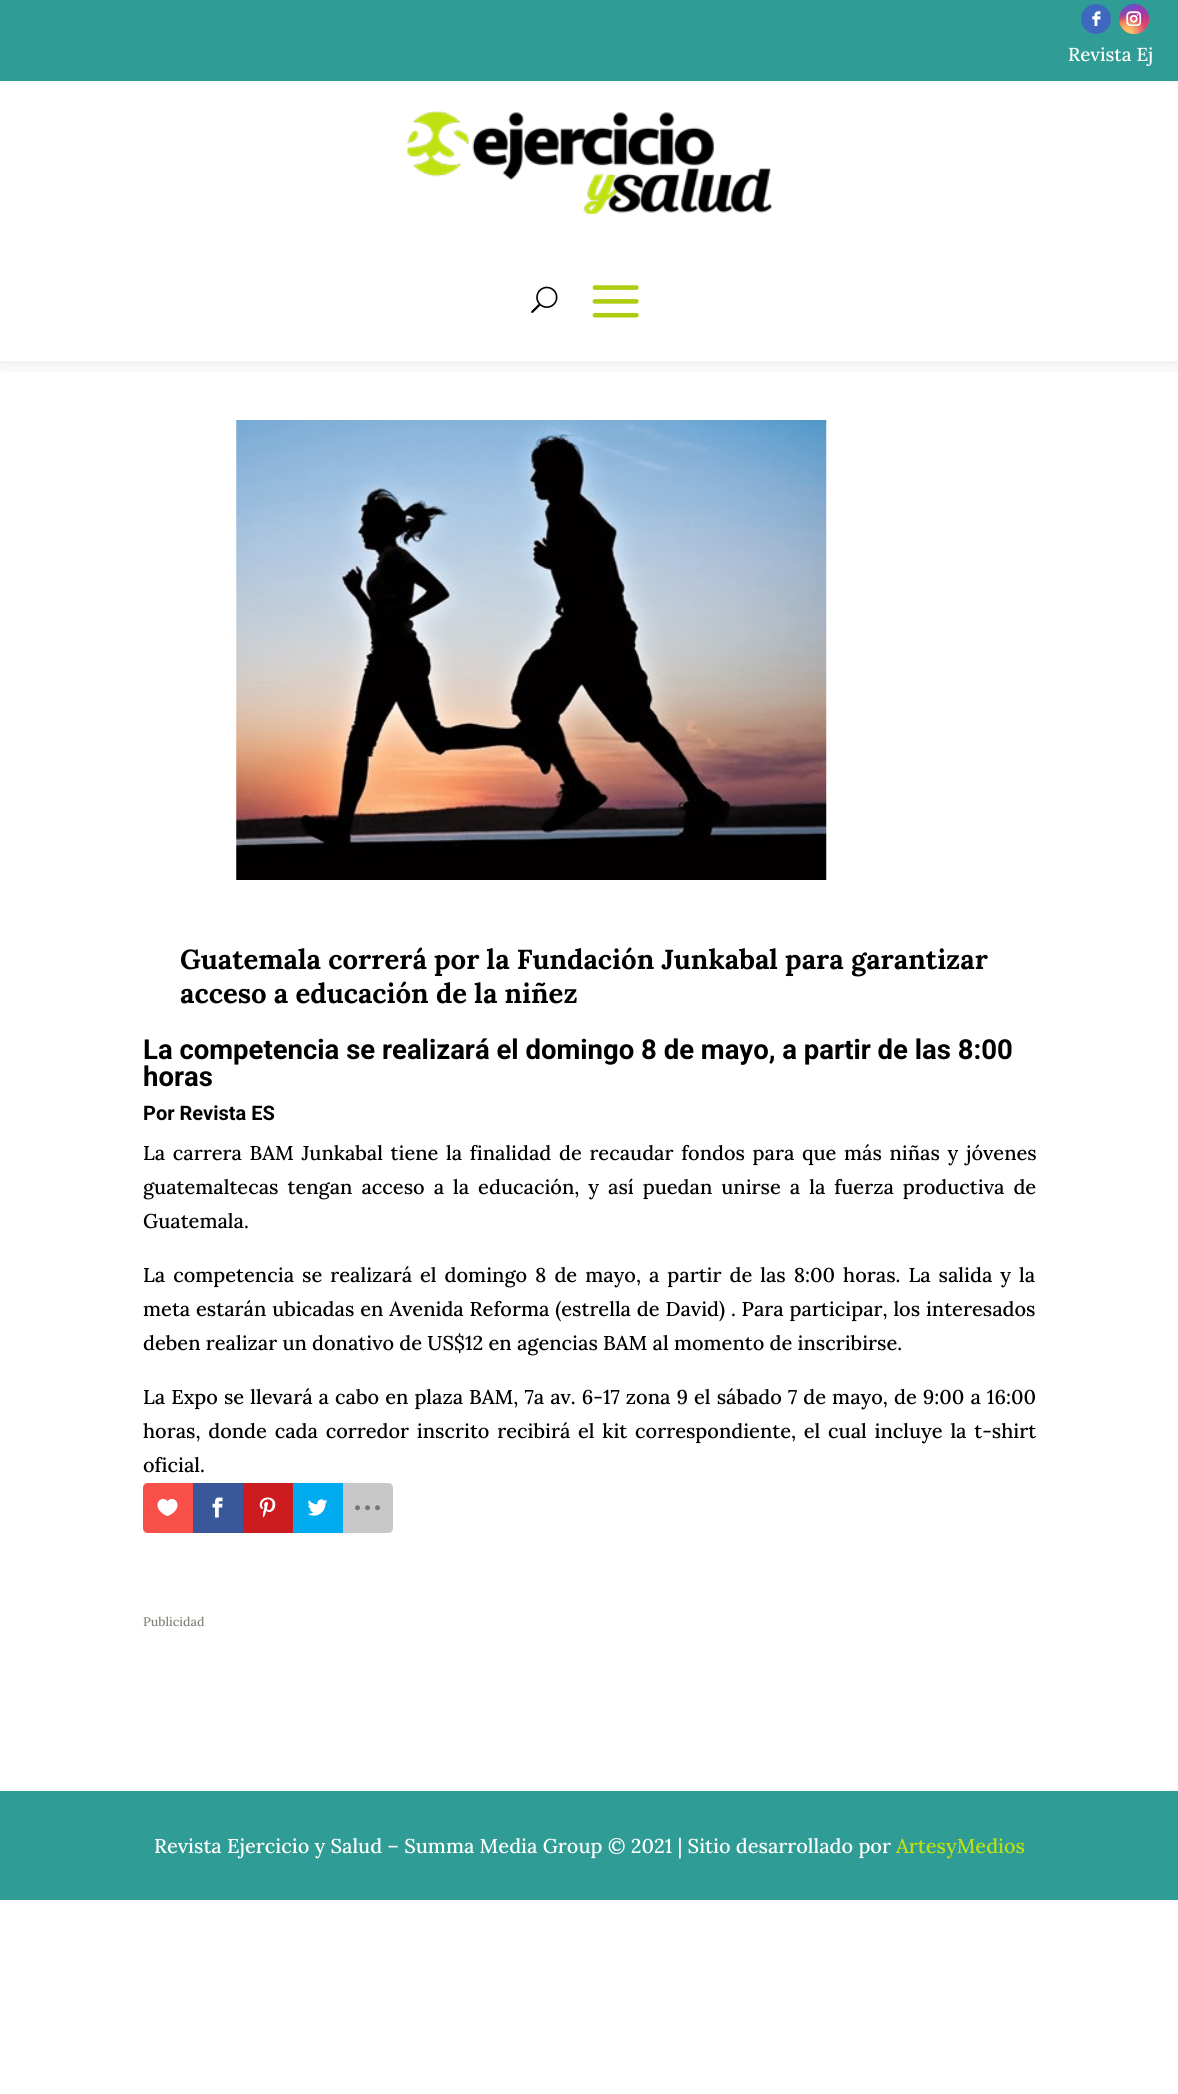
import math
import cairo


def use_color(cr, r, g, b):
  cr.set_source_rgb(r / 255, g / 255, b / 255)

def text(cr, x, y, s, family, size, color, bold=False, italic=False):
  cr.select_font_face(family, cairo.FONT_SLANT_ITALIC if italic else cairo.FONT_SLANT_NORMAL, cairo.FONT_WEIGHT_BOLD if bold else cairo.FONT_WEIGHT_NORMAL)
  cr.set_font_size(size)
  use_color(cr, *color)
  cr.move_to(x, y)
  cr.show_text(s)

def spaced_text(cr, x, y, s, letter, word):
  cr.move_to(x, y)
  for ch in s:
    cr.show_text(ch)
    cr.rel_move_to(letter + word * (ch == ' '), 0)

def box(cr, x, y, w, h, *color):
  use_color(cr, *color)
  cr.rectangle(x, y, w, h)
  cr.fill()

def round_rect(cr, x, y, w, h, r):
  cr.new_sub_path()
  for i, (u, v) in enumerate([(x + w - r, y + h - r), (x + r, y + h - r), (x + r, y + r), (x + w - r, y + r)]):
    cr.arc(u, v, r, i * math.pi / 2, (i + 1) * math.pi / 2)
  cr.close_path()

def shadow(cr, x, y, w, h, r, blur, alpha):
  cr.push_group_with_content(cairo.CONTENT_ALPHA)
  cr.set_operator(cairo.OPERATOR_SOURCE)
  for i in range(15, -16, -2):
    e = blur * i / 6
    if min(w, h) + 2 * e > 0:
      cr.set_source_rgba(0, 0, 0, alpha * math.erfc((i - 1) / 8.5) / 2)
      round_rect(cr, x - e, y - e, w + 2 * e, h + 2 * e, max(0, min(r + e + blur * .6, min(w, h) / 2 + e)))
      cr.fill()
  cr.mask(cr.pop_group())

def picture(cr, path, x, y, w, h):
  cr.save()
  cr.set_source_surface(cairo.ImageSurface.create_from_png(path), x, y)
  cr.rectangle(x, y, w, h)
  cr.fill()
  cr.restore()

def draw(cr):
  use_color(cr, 255, 255, 255)
  cr.paint()
  cr.save()
  cr.rectangle(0, 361, 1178, 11)
  cr.clip()
  use_color(cr, 0, 0, 0)
  shadow(cr, 0, -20, 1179, 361, 0, 20.5, 0.3)
  cr.restore()
  box(cr, 0, 0, 1178, 81, 47, 156, 149)
  use_color(cr, 62, 104, 192)
  cr.arc(1096, 19, 15, 0, 2 * math.pi)
  cr.fill()
  picture(cr, "img_01.png", 1092, 11, 9, 15)
  gradient = cairo.LinearGradient(1134, 3.7, 1134, 34)
  gradient.add_color_stop_rgba(0, 0.396, 0.349, 0.792, 1)
  gradient.add_color_stop_rgba(0.3, 0.737, 0.192, 0.561, 1)
  gradient.add_color_stop_rgba(0.5, 0.89, 0.247, 0.373, 1)
  gradient.add_color_stop_rgba(0.7, 0.969, 0.463, 0.22, 1)
  gradient.add_color_stop_rgba(1, 0.996, 0.776, 0.427, 1)
  cr.set_source(gradient)
  cr.arc(1134, 19, 15, 0, 2 * math.pi)
  cr.fill()
  gradient = cairo.RadialGradient(1149, 34, 0, 1149, 34, 42)
  gradient.add_color_stop_rgba(0, 0.851, 0.192, 0.478, 1)
  gradient.add_color_stop_rgba(1, 0.851, 0.192, 0.478, 0)
  cr.set_source(gradient)
  cr.arc(1134, 19, 15, 0, 2 * math.pi)
  cr.fill()
  gradient = cairo.RadialGradient(0, 0, 0, 0, 0, 1)
  gradient.set_matrix(cairo.Matrix(1 / 25, 0, 0, 1 / 51, -1 * 1137 / 25, -1 * -2.3 / 51))
  gradient.add_color_stop_rgba(0, 0.537, 0.239, 0.761, 1)
  gradient.add_color_stop_rgba(0.5, 0.537, 0.239, 0.761, 0)
  cr.set_source(gradient)
  cr.arc(1134, 19, 15, 0, 2 * math.pi)
  cr.fill()
  gradient = cairo.RadialGradient(1149, 3.8, 0, 1149, 3.8, 42)
  gradient.add_color_stop_rgba(0, 0.537, 0.239, 0.761, 1)
  gradient.add_color_stop_rgba(0.5, 0.537, 0.239, 0.761, 0)
  cr.set_source(gradient)
  cr.arc(1134, 19, 15, 0, 2 * math.pi)
  cr.fill()
  gradient = cairo.RadialGradient(0, 0, 0, 0, 0, 1)
  gradient.set_matrix(cairo.Matrix(1 / 34, 0, 0, 1 / 64, -1 * 1125 / 34, -1 * -11 / 64))
  gradient.add_color_stop_rgba(0, 0.322, 0.345, 0.812, 1)
  gradient.add_color_stop_rgba(0.5, 0.322, 0.345, 0.812, 0)
  cr.set_source(gradient)
  cr.arc(1134, 19, 15, 0, 2 * math.pi)
  cr.fill()
  gradient = cairo.RadialGradient(0, 0, 0, 0, 0, 1)
  gradient.set_matrix(cairo.Matrix(1 / 42, 0, 0, 1 / 53, -1 * 1119 / 42, -1 * -3.8 / 53))
  gradient.add_color_stop_rgba(0, 0.322, 0.345, 0.812, 1)
  gradient.add_color_stop_rgba(0.5, 0.322, 0.345, 0.812, 0)
  cr.set_source(gradient)
  cr.arc(1134, 19, 15, 0, 2 * math.pi)
  cr.fill()
  gradient = cairo.RadialGradient(1119, 46, 0, 1119, 46, 52)
  gradient.add_color_stop_rgba(0, 0.996, 0.773, 0.392, 1)
  gradient.add_color_stop_rgba(0.5, 0.996, 0.773, 0.392, 0)
  cr.set_source(gradient)
  cr.arc(1134, 19, 15, 0, 2 * math.pi)
  cr.fill()
  gradient = cairo.RadialGradient(1129, 31, 0, 1129, 31, 33)
  gradient.add_color_stop_rgba(0, 0.996, 0.773, 0.392, 1)
  gradient.add_color_stop_rgba(0.5, 0.996, 0.773, 0.392, 0)
  cr.set_source(gradient)
  cr.arc(1134, 19, 15, 0, 2 * math.pi)
  cr.fill()
  picture(cr, "img_02.png", 1126, 11, 15, 15)
  picture(cr, "img_03.png", 406, 111, 367, 104)
  picture(cr, "img_04.png", 531, 286, 27, 27)
  picture(cr, "img_05.png", 592, 285, 47, 33)
  picture(cr, "img_06.png", 236, 420, 591, 460)
  use_color(cr, 249, 81, 73)
  cr.new_path()
  cr.move_to(148, 1483)
  cr.line_to(193, 1483)
  cr.line_to(193, 1533)
  cr.line_to(148, 1533)
  cr.curve_to(145, 1533, 143, 1531, 143, 1528)
  cr.line_to(143, 1488)
  cr.curve_to(143, 1485, 145, 1483, 148, 1483)
  cr.close_path()
  cr.fill()
  picture(cr, "img_07.png", 157, 1498, 21, 18)
  box(cr, 193, 1483, 50, 50, 58, 87, 154)
  picture(cr, "img_08.png", 212, 1497, 11, 21)
  box(cr, 243, 1483, 50, 50, 205, 28, 31)
  picture(cr, "img_09.png", 259, 1497, 17, 21)
  box(cr, 293, 1483, 50, 50, 0, 171, 240)
  picture(cr, "img_10.png", 307, 1499, 21, 17)
  use_color(cr, 222, 222, 222)
  cr.new_path()
  cr.move_to(343, 1483)
  cr.line_to(388, 1483)
  cr.curve_to(391, 1483, 393, 1485, 393, 1488)
  cr.line_to(393, 1528)
  cr.curve_to(393, 1531, 391, 1533, 388, 1533)
  cr.line_to(343, 1533)
  cr.close_path()
  cr.fill()
  cr.set_source_rgba(0, 0, 0, 0.1)
  cr.new_path()
  cr.move_to(343, 1483)
  cr.line_to(388, 1483)
  cr.curve_to(391, 1483, 393, 1485, 393, 1488)
  cr.line_to(393, 1528)
  cr.curve_to(393, 1531, 391, 1533, 388, 1533)
  cr.line_to(343, 1533)
  cr.close_path()
  cr.fill()
  picture(cr, "img_11.png", 355, 1505, 25, 6)
  box(cr, 0, 1791, 1178, 109, 47, 156, 149)
  text(cr, 1068, 61, "Revista Ej", "Lora Medium", 18.75, (255, 255, 255))
  text(cr, 180, 969, "Guatemala correrá por la Fundación Junkabal para garantizar", "Lora", 27.5, (0, 0, 0), bold=True)
  text(cr, 180, 1003, "acceso a educación de la niñez", "Lora", 27.5, (0, 0, 0), bold=True)
  text(cr, 143, 1059, "La competencia se realizará el domingo 8 de mayo, a partir de las 8:00", "Roboto", 27.5, (0, 0, 0), bold=True)
  text(cr, 143, 1086, "horas", "Roboto", 27.5, (0, 0, 0), bold=True)
  text(cr, 143, 1120, "Por Revista ES", "Roboto", 20, (0, 0, 0), bold=True)
  cr.select_font_face("Lora Medium")
  spaced_text(cr, 143, 1160, "La carrera BAM Junkabal tiene la finalidad de recaudar fondos para que más niñas y jóvenes", 0, 2.4)
  spaced_text(cr, 143, 1194, "guatemaltecas tengan acceso a la educación, y así puedan unirse a la fuerza productiva de", 0, 3.75)
  text(cr, 143, 1228, "Guatemala.", "Lora Medium", 20, (0, 0, 0))
  spaced_text(cr, 143, 1282, "La competencia se realizará el domingo 8 de mayo, a partir de las 8:00 horas. La salida y la", 0, 2.75)
  spaced_text(cr, 143, 1316, "meta estarán ubicadas en Avenida Reforma (estrella de David) . Para participar, los interesados", 0, 0.6)
  text(cr, 143, 1350, "deben realizar un donativo de US$12 en agencias BAM al momento de inscribirse.", "Lora Medium", 20, (0, 0, 0))
  spaced_text(cr, 143, 1404, "La Expo se llevará a cabo en plaza BAM, 7a av. 6-17 zona 9 el sábado 7 de mayo, de 9:00 a 16:00", 0, 0.8)
  spaced_text(cr, 143, 1438, "horas, donde cada corredor inscrito recibirá el kit correspondiente, el cual incluye la t-shirt", 0, 2.5)
  text(cr, 143, 1472, "oficial.", "Lora Medium", 20, (0, 0, 0))
  text(cr, 143, 1626, "Publicidad", "Lora Medium", 12.5, (129, 132, 121))
  text(cr, 154, 1853, "Revista Ejercicio y Salud – Summa Media Group © 2021 | Sitio desarrollado por", "Lora Medium", 20, (255, 255, 255))
  text(cr, 896, 1853, "ArtesyMedios", "Lora Medium", 20, (191, 225, 17))


surface = cairo.ImageSurface(cairo.FORMAT_RGB24, 1178, 2094)
cr = cairo.Context(surface)
options = cairo.FontOptions()
options.set_hint_metrics(cairo.HINT_METRICS_OFF)
options.set_hint_style(cairo.HINT_STYLE_NONE)
cr.set_font_options(options)
cr.set_miter_limit(4)
draw(cr)
surface.write_to_png("out.png")
